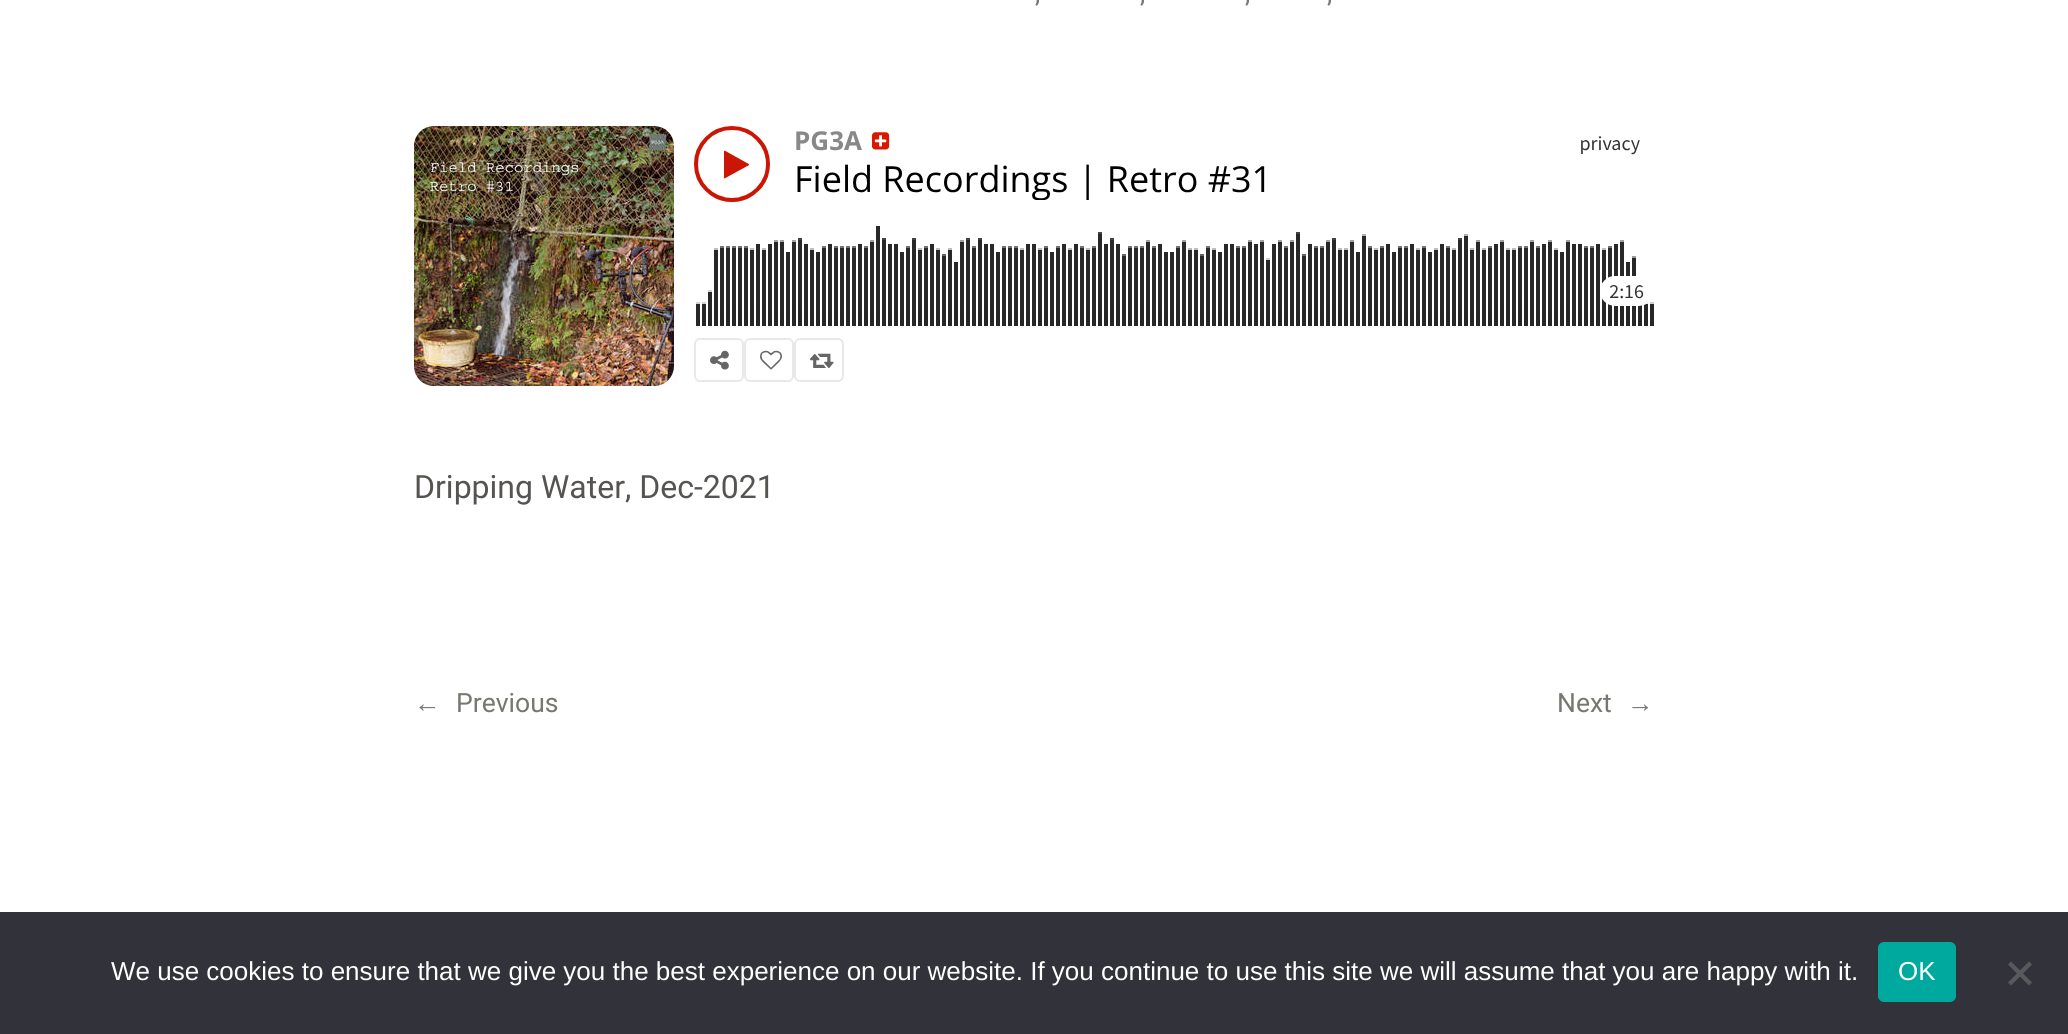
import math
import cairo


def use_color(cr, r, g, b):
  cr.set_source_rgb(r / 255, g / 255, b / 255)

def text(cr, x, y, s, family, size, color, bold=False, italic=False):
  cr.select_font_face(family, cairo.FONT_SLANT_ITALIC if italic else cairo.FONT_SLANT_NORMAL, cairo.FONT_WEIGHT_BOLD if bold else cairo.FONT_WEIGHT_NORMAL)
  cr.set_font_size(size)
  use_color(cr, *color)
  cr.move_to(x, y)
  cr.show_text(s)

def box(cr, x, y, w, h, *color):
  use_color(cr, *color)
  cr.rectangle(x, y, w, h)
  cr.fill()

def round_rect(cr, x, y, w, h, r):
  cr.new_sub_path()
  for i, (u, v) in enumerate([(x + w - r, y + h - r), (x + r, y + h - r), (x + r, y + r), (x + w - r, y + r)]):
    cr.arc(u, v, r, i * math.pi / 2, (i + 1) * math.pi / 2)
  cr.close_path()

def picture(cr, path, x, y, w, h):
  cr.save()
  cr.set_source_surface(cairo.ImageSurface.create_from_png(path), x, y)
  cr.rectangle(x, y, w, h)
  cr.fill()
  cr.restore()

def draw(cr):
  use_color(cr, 255, 255, 255)
  cr.paint()
  picture(cr, "img_01.png", 414, 126, 1240, 260)
  box(cr, 0, 912, 2068, 122, 50, 50, 58)
  use_color(cr, 0, 169, 157)
  round_rect(cr, 1878, 942, 78, 60, 6)
  cr.fill()
  use_color(cr, 89, 89, 93)
  cr.new_path()
  cr.move_to(2029, 961.5)
  cr.line_to(2032, 964.5)
  cr.line_to(2011, 985.5)
  cr.line_to(2008, 982.5)
  cr.close_path()
  cr.fill()
  cr.new_path()
  cr.move_to(2008, 964.5)
  cr.line_to(2011, 961.5)
  cr.line_to(2032, 982.5)
  cr.line_to(2029, 985.5)
  cr.close_path()
  cr.fill()
  text(cr, 1035, 2, ",", "Roboto", 26.5, (120, 118, 112))
  text(cr, 1140, 2, ",", "Roboto", 26.5, (120, 118, 112))
  text(cr, 1245, 2, ",", "Roboto", 26.5, (120, 118, 112))
  text(cr, 1327, 2, ",", "Roboto", 26.5, (120, 118, 112))
  text(cr, 414, 498, "Dripping Water, Dec-2021", "Roboto", 32, (85, 84, 81))
  text(cr, 414, 712, "←", "Liberation Sans", 26.5, (120, 118, 112))
  text(cr, 456, 712, "Previous", "Roboto", 26.5, (120, 118, 112))
  text(cr, 1557, 712, "Next", "Roboto", 26.5, (120, 118, 112))
  text(cr, 1627, 712, "→", "Liberation Sans", 26.5, (120, 118, 112))
  text(cr, 111, 980, "We use cookies to ensure that we give you the best experience on our website. If you continue to use this site we will assume that you are happy with it.", "Liberation Sans", 26, (255, 255, 255))
  text(cr, 1898, 980, "OK", "Liberation Sans", 26, (255, 255, 255))


surface = cairo.ImageSurface(cairo.FORMAT_RGB24, 2068, 1034)
cr = cairo.Context(surface)
options = cairo.FontOptions()
options.set_hint_metrics(cairo.HINT_METRICS_OFF)
options.set_hint_style(cairo.HINT_STYLE_NONE)
cr.set_font_options(options)
cr.set_miter_limit(4)
draw(cr)
surface.write_to_png("out.png")
